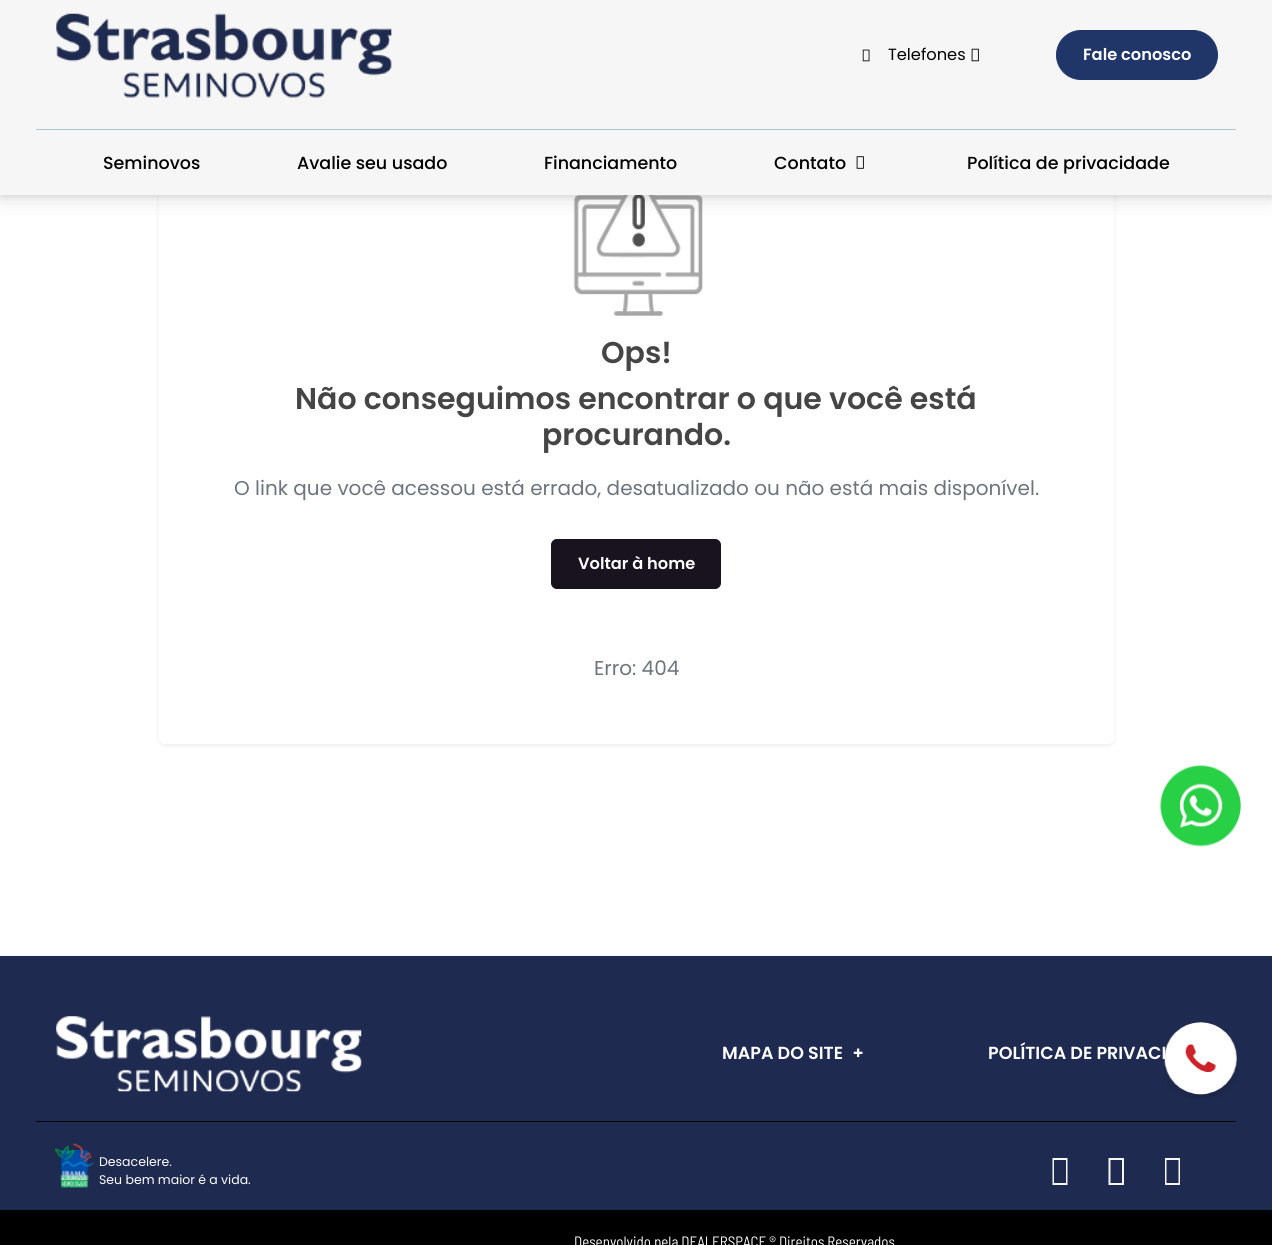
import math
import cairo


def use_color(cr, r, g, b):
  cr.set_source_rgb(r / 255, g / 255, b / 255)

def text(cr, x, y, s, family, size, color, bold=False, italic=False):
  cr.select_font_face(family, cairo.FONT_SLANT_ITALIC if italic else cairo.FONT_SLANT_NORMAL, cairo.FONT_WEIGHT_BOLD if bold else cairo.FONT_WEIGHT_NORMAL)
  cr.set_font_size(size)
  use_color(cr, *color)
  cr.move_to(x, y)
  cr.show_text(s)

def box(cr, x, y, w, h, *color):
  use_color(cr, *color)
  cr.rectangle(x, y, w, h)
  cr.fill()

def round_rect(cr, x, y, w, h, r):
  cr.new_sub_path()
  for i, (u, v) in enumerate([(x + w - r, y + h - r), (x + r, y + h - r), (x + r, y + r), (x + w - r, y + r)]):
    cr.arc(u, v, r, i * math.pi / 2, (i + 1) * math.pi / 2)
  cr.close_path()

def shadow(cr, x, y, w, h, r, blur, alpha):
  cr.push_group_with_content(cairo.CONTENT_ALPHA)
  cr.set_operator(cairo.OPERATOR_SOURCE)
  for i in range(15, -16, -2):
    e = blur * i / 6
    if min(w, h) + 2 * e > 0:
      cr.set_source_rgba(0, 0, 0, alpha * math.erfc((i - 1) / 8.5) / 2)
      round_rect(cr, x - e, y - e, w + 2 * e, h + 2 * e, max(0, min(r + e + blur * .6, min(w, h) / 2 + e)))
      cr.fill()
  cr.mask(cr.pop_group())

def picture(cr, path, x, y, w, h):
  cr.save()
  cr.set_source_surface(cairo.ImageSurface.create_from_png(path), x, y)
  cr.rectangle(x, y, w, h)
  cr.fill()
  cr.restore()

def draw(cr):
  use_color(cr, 255, 255, 255)
  cr.paint()
  use_color(cr, 0, 0, 0)
  shadow(cr, 159, 113, 955, 633, 6, 2.5, 0.07)
  use_color(cr, 255, 255, 255)
  round_rect(cr, 159, 110, 955, 634, 6)
  cr.fill()
  picture(cr, "img_05.png", 573, 195, 130, 121)
  use_color(cr, 0, 0, 0)
  shadow(cr, 0, 5, 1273, 195, 0, 9.5, 0.1)
  shadow(cr, 0, 113, 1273, 85, 0, 2.5, 0.07)
  box(cr, 0, 0, 1272, 195, 246, 246, 246)
  picture(cr, "img_01.png", 56, 13, 336, 85)
  picture(cr, "img_02.png", 862, 49, 8, 13)
  picture(cr, "img_03.png", 971, 48, 8, 14)
  use_color(cr, 32, 54, 105)
  round_rect(cr, 1056.5, 30.5, 161, 49, 24.5)
  cr.fill_preserve()
  cr.set_line_width(1)
  cr.stroke()
  box(cr, 36, 129, 1200, 1, 173, 199, 210)
  picture(cr, "img_04.png", 856, 156, 8, 13)
  use_color(cr, 24, 19, 31)
  round_rect(cr, 551.5, 539.5, 169, 49, 5.5)
  cr.fill_preserve()
  cr.stroke()
  picture(cr, "img_06.png", 1160, 765, 81, 82)
  box(cr, 0, 956, 1272, 254, 31, 42, 80)
  picture(cr, "img_07.png", 56, 1016, 306, 76)
  box(cr, 36, 1121, 1200, 1, 0, 0, 0)
  picture(cr, "img_08.png", 55, 1143, 39, 45)
  use_color(cr, 246, 246, 246)
  cr.new_path()
  cr.move_to(1052.5, 1185)
  cr.line_to(1052.5, 1158)
  cr.line_to(1067.5, 1158)
  cr.line_to(1067.5, 1185)
  cr.close_path()
  cr.move_to(1054, 1183)
  cr.line_to(1066, 1183)
  cr.line_to(1066, 1160)
  cr.line_to(1054, 1160)
  cr.close_path()
  cr.fill()
  cr.new_path()
  cr.move_to(1108.5, 1185)
  cr.line_to(1108.5, 1158)
  cr.line_to(1124, 1158)
  cr.line_to(1124, 1185)
  cr.close_path()
  cr.move_to(1110.5, 1183)
  cr.line_to(1122, 1183)
  cr.line_to(1122, 1160)
  cr.line_to(1110.5, 1160)
  cr.close_path()
  cr.fill()
  cr.new_path()
  cr.move_to(1165, 1185)
  cr.line_to(1165, 1158)
  cr.line_to(1180, 1158)
  cr.line_to(1180, 1185)
  cr.close_path()
  cr.move_to(1166.5, 1183)
  cr.line_to(1178.5, 1183)
  cr.line_to(1178.5, 1160)
  cr.line_to(1166.5, 1160)
  cr.close_path()
  cr.fill()
  box(cr, 0, 1210, 1272, 35, 0, 0, 0)
  text(cr, 888, 60, "Telefones", "Poppins", 16.25, (0, 0, 0))
  text(cr, 1083, 60, "Fale conosco", "Poppins SemiBold", 16.25, (255, 255, 255))
  text(cr, 103, 169, "Seminovos", "Poppins Medium", 17.5, (0, 0, 0))
  text(cr, 297, 169, "Avalie seu usado", "Poppins Medium", 17.5, (0, 0, 0))
  text(cr, 544, 169, "Financiamento", "Poppins Medium", 17.5, (0, 0, 0))
  text(cr, 774, 169, "Contato", "Poppins Medium", 17.5, (0, 0, 0))
  text(cr, 967, 169, "Política de privacidade", "Poppins Medium", 17.5, (0, 0, 0))
  text(cr, 601, 363, "Ops!", "Poppins SemiBold", 30, (69, 69, 69))
  text(cr, 295, 409, "Não conseguimos encontrar o que você está", "Poppins SemiBold", 30, (69, 69, 69))
  text(cr, 542, 445, "procurando.", "Poppins SemiBold", 30, (69, 69, 69))
  text(cr, 234, 495, "O link que você acessou está errado, desatualizado ou não está mais disponível.", "Poppins", 20, (108, 117, 125))
  text(cr, 578, 569, "Voltar à home", "Poppins SemiBold", 16.25, (255, 255, 255))
  text(cr, 594, 675, "Erro: 404", "Poppins", 20, (108, 117, 125))
  text(cr, 722, 1059, "MAPA DO SITE", "Poppins SemiBold", 17.5, (255, 255, 255))
  text(cr, 853, 1059, "+", "Noto Sans Black", 17.5, (255, 255, 255))
  text(cr, 988, 1059, "POLÍTICA DE PRIVACI", "Poppins SemiBold", 17.5, (255, 255, 255))
  text(cr, 99, 1166, "Desacelere.", "Poppins", 12.5, (255, 255, 255))
  text(cr, 99, 1184, "Seu bem maior é a vida.", "Poppins", 12.5, (255, 255, 255))
  text(cr, 574, 1247, "Desenvolvido pela DEALERSPACE ® Direitos Reservados", "Barlow Semi Condensed", 15, (255, 255, 255))
  picture(cr, "img_09.png", 1163, 1022, 75, 78)


surface = cairo.ImageSurface(cairo.FORMAT_RGB24, 1272, 1245)
cr = cairo.Context(surface)
options = cairo.FontOptions()
options.set_hint_metrics(cairo.HINT_METRICS_OFF)
options.set_hint_style(cairo.HINT_STYLE_NONE)
cr.set_font_options(options)
cr.set_miter_limit(4)
draw(cr)
surface.write_to_png("out.png")
